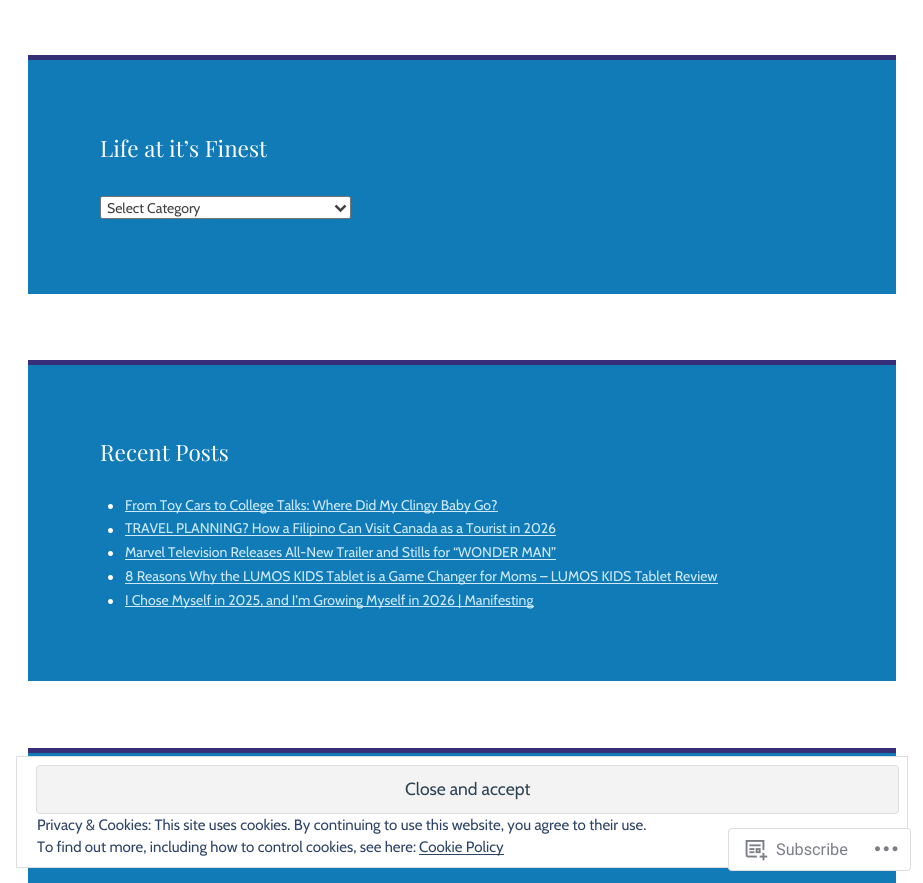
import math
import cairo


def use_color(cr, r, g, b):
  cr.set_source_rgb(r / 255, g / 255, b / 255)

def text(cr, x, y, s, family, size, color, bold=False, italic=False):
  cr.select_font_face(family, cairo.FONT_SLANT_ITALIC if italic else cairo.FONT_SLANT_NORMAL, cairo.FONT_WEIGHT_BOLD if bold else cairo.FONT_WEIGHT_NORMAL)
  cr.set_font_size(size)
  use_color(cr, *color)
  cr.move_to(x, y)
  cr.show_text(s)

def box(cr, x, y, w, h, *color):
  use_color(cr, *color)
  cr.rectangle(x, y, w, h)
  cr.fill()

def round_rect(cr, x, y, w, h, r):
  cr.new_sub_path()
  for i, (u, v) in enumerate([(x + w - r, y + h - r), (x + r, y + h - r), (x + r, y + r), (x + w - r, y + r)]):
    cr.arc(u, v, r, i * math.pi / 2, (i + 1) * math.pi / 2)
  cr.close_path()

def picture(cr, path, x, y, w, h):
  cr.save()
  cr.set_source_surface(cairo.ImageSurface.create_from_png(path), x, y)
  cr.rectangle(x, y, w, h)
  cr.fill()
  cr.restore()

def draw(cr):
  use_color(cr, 255, 255, 255)
  cr.paint()
  box(cr, 28, 60, 868, 234, 17, 123, 184)
  box(cr, 28, 55, 868, 5, 54, 46, 119)
  use_color(cr, 255, 255, 255)
  round_rect(cr, 100.5, 196.5, 250, 22, 2)
  cr.fill_preserve()
  use_color(cr, 118, 118, 118)
  cr.set_line_width(1)
  cr.stroke()
  cr.new_path()
  cr.move_to(335.5, 205.5)
  cr.line_to(340.5, 210.5)
  cr.line_to(345.5, 205.5)
  use_color(cr, 64, 64, 64)
  cr.set_line_width(2.5)
  cr.stroke()
  box(cr, 28, 365, 868, 316, 17, 123, 184)
  box(cr, 28, 360, 868, 5, 54, 46, 119)
  use_color(cr, 255, 255, 255)
  cr.arc(110.5, 506.5, 2.5, 0, 2 * math.pi)
  cr.fill()
  box(cr, 125, 511, 373, 1, 206, 234, 250)
  use_color(cr, 255, 255, 255)
  cr.arc(110.5, 530.5, 2.5, 0, 2 * math.pi)
  cr.fill()
  box(cr, 125, 535, 431, 1, 206, 234, 250)
  use_color(cr, 255, 255, 255)
  cr.arc(110.5, 553.5, 2.5, 0, 2 * math.pi)
  cr.fill()
  box(cr, 125, 559, 431, 1, 206, 234, 250)
  use_color(cr, 255, 255, 255)
  cr.arc(110.5, 577.5, 2.5, 0, 2 * math.pi)
  cr.fill()
  box(cr, 125, 583, 593, 1, 206, 234, 250)
  use_color(cr, 255, 255, 255)
  cr.arc(110.5, 601.5, 2.5, 0, 2 * math.pi)
  cr.fill()
  box(cr, 125, 606, 409, 1, 206, 234, 250)
  box(cr, 28, 753, 868, 130, 17, 123, 184)
  box(cr, 28, 748, 868, 5, 54, 46, 119)
  box(cr, 28, 757, 868, 110, 255, 255, 255)
  cr.rectangle(16.5, 756.5, 891, 111)
  use_color(cr, 222, 222, 222)
  cr.set_line_width(1)
  cr.stroke()
  use_color(cr, 243, 243, 243)
  round_rect(cr, 36.5, 765.5, 862, 48, 3.5)
  cr.fill_preserve()
  use_color(cr, 222, 222, 222)
  cr.stroke()
  box(cr, 419, 854, 85, 1, 46, 68, 103)
  cr.set_source_rgba(1, 1, 1, 0.98)
  round_rect(cr, 728, 828, 183, 43, 4)
  cr.fill()
  round_rect(cr, 728.5, 828.5, 182, 42, 3.5)
  cr.set_source_rgba(0.863, 0.863, 0.871, 0.98)
  cr.stroke()
  picture(cr, "img_01.png", 745, 840, 23, 21)
  picture(cr, "img_02.png", 875, 846, 23, 6)
  text(cr, 100, 157, "Life at it’s Finest", "Playfair Display", 22.5, (255, 255, 255))
  text(cr, 107, 213, "Select Category", "Cabin", 14, (64, 64, 64))
  text(cr, 100, 461, "Recent Posts", "Playfair Display", 22.5, (255, 255, 255))
  text(cr, 125, 510, "From Toy Cars to College Talks: Where Did My Clingy Baby Go?", "Cabin", 14, (206, 234, 250))
  text(cr, 125, 533, "TRAVEL PLANNING? How a Filipino Can Visit Canada as a Tourist in 2026", "Cabin", 14, (206, 234, 250))
  text(cr, 125, 557, "Marvel Television Releases All-New Trailer and Stills for “WONDER MAN”", "Cabin", 14, (206, 234, 250))
  text(cr, 125, 581, "8 Reasons Why the LUMOS KIDS Tablet is a Game Changer for Moms – LUMOS KIDS Tablet Review", "Cabin", 14, (206, 234, 250))
  text(cr, 125, 605, "I Chose Myself in 2025, and I’m Growing Myself in 2026 | Manifesting", "Cabin", 14, (206, 234, 250))
  text(cr, 405, 795, "Close and accept", "Cabin", 17.5, (46, 68, 83))
  text(cr, 37, 830, "Privacy & Cookies: This site uses cookies. By continuing to use this website, you agree to their use.", "Cabin", 15, (46, 68, 103))
  text(cr, 37, 852, "To find out more, including how to control cookies, see here:", "Cabin", 15, (46, 68, 103))
  text(cr, 419, 852, "Cookie Policy", "Cabin", 15, (46, 68, 103))
  text(cr, 776, 855, "Subscribe", "Roboto", 16.25, (123, 127, 133))


surface = cairo.ImageSurface(cairo.FORMAT_RGB24, 923, 883)
cr = cairo.Context(surface)
options = cairo.FontOptions()
options.set_hint_metrics(cairo.HINT_METRICS_OFF)
options.set_hint_style(cairo.HINT_STYLE_NONE)
cr.set_font_options(options)
cr.set_miter_limit(4)
draw(cr)
surface.write_to_png("out.png")
